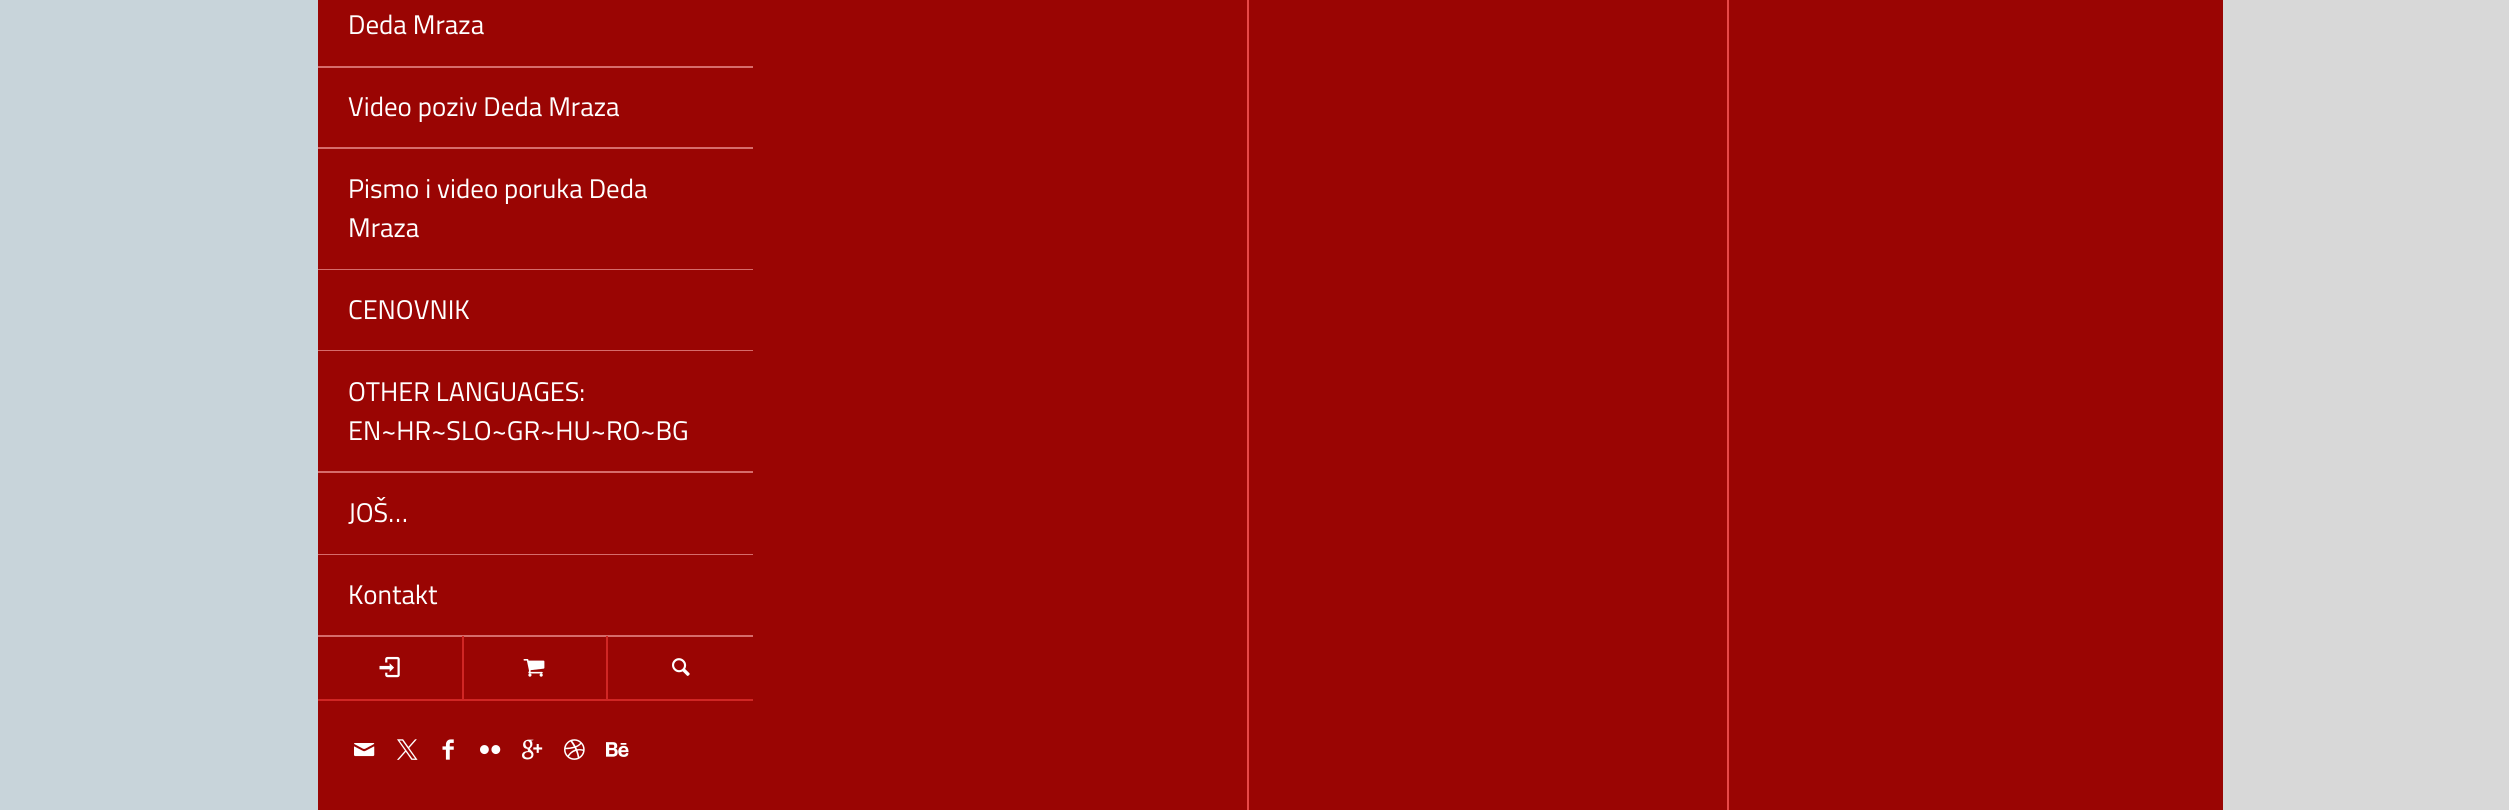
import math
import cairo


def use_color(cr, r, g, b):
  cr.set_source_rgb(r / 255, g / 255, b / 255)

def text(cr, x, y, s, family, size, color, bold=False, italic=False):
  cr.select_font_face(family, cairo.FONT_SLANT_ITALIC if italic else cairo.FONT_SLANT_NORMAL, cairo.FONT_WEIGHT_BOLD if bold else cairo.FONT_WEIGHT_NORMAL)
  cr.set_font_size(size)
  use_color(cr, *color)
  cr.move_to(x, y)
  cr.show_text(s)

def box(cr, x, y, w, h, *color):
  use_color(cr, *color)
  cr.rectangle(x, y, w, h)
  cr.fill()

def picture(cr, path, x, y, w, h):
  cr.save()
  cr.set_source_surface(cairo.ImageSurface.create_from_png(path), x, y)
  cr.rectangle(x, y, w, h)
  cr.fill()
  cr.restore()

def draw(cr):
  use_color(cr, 200, 212, 218)
  cr.paint()
  box(cr, 318, 0, 435, 66, 154, 5, 3)
  box(cr, 318, 66, 435, 2, 214, 108, 107)
  box(cr, 318, 68, 435, 79, 154, 5, 3)
  box(cr, 318, 147, 435, 2, 214, 108, 107)
  box(cr, 318, 149, 435, 120, 154, 5, 3)
  box(cr, 318, 269, 435, 1, 214, 108, 107)
  box(cr, 318, 270, 435, 80, 154, 5, 3)
  box(cr, 318, 350, 435, 1, 214, 108, 107)
  box(cr, 318, 351, 435, 120, 154, 5, 3)
  box(cr, 318, 471, 435, 2, 214, 108, 107)
  box(cr, 318, 473, 435, 81, 154, 5, 3)
  box(cr, 318, 554, 435, 1, 214, 108, 107)
  box(cr, 318, 555, 435, 80, 154, 5, 3)
  box(cr, 318, 635, 435, 2, 214, 108, 107)
  box(cr, 318, 637, 435, 62, 154, 5, 3)
  box(cr, 318, 699, 435, 2, 208, 38, 36)
  box(cr, 462, 636, 2, 63, 208, 38, 36)
  picture(cr, "img_01.png", 379, 656, 21, 22)
  box(cr, 606, 636, 2, 63, 208, 38, 36)
  picture(cr, "img_02.png", 523, 659, 22, 18)
  picture(cr, "img_03.png", 672, 658, 18, 18)
  box(cr, 318, 701, 435, 109, 154, 5, 3)
  picture(cr, "img_04.png", 354, 743, 21, 14)
  picture(cr, "img_05.png", 397, 739, 21, 21)
  picture(cr, "img_06.png", 442, 739, 12, 21)
  picture(cr, "img_07.png", 480, 745, 21, 10)
  picture(cr, "img_08.png", 522, 739, 21, 21)
  picture(cr, "img_09.png", 564, 739, 21, 21)
  picture(cr, "img_10.png", 606, 742, 23, 15)
  box(cr, 2223, 0, 286, 810, 216, 216, 216)
  box(cr, 753, 0, 1470, 810, 154, 5, 3)
  box(cr, 1247, 0, 2, 810, 231, 72, 71)
  box(cr, 1727, 0, 2, 810, 231, 72, 71)
  text(cr, 348, 34, "Deda Mraza", "Titillium Web", 27, (255, 255, 255))
  text(cr, 348, 116, "Video poziv Deda Mraza", "Titillium Web", 27, (255, 255, 255))
  text(cr, 348, 198, "Pismo i video poruka Deda", "Titillium Web", 27, (255, 255, 255))
  text(cr, 348, 237, "Mraza", "Titillium Web", 27, (255, 255, 255))
  text(cr, 348, 319, "CENOVNIK", "Titillium Web", 27, (255, 255, 255))
  text(cr, 348, 401, "OTHER LANGUAGES:", "Titillium Web", 27, (255, 255, 255))
  text(cr, 348, 440, "EN~HR~SLO~GR~HU~RO~BG", "Titillium Web", 27, (255, 255, 255))
  text(cr, 348, 522, "JOŠ…", "Titillium Web", 27, (255, 255, 255))
  text(cr, 348, 604, "Kontakt", "Titillium Web", 27, (255, 255, 255))


surface = cairo.ImageSurface(cairo.FORMAT_RGB24, 2509, 810)
cr = cairo.Context(surface)
options = cairo.FontOptions()
options.set_hint_metrics(cairo.HINT_METRICS_OFF)
options.set_hint_style(cairo.HINT_STYLE_NONE)
cr.set_font_options(options)
cr.set_miter_limit(4)
draw(cr)
surface.write_to_png("out.png")
